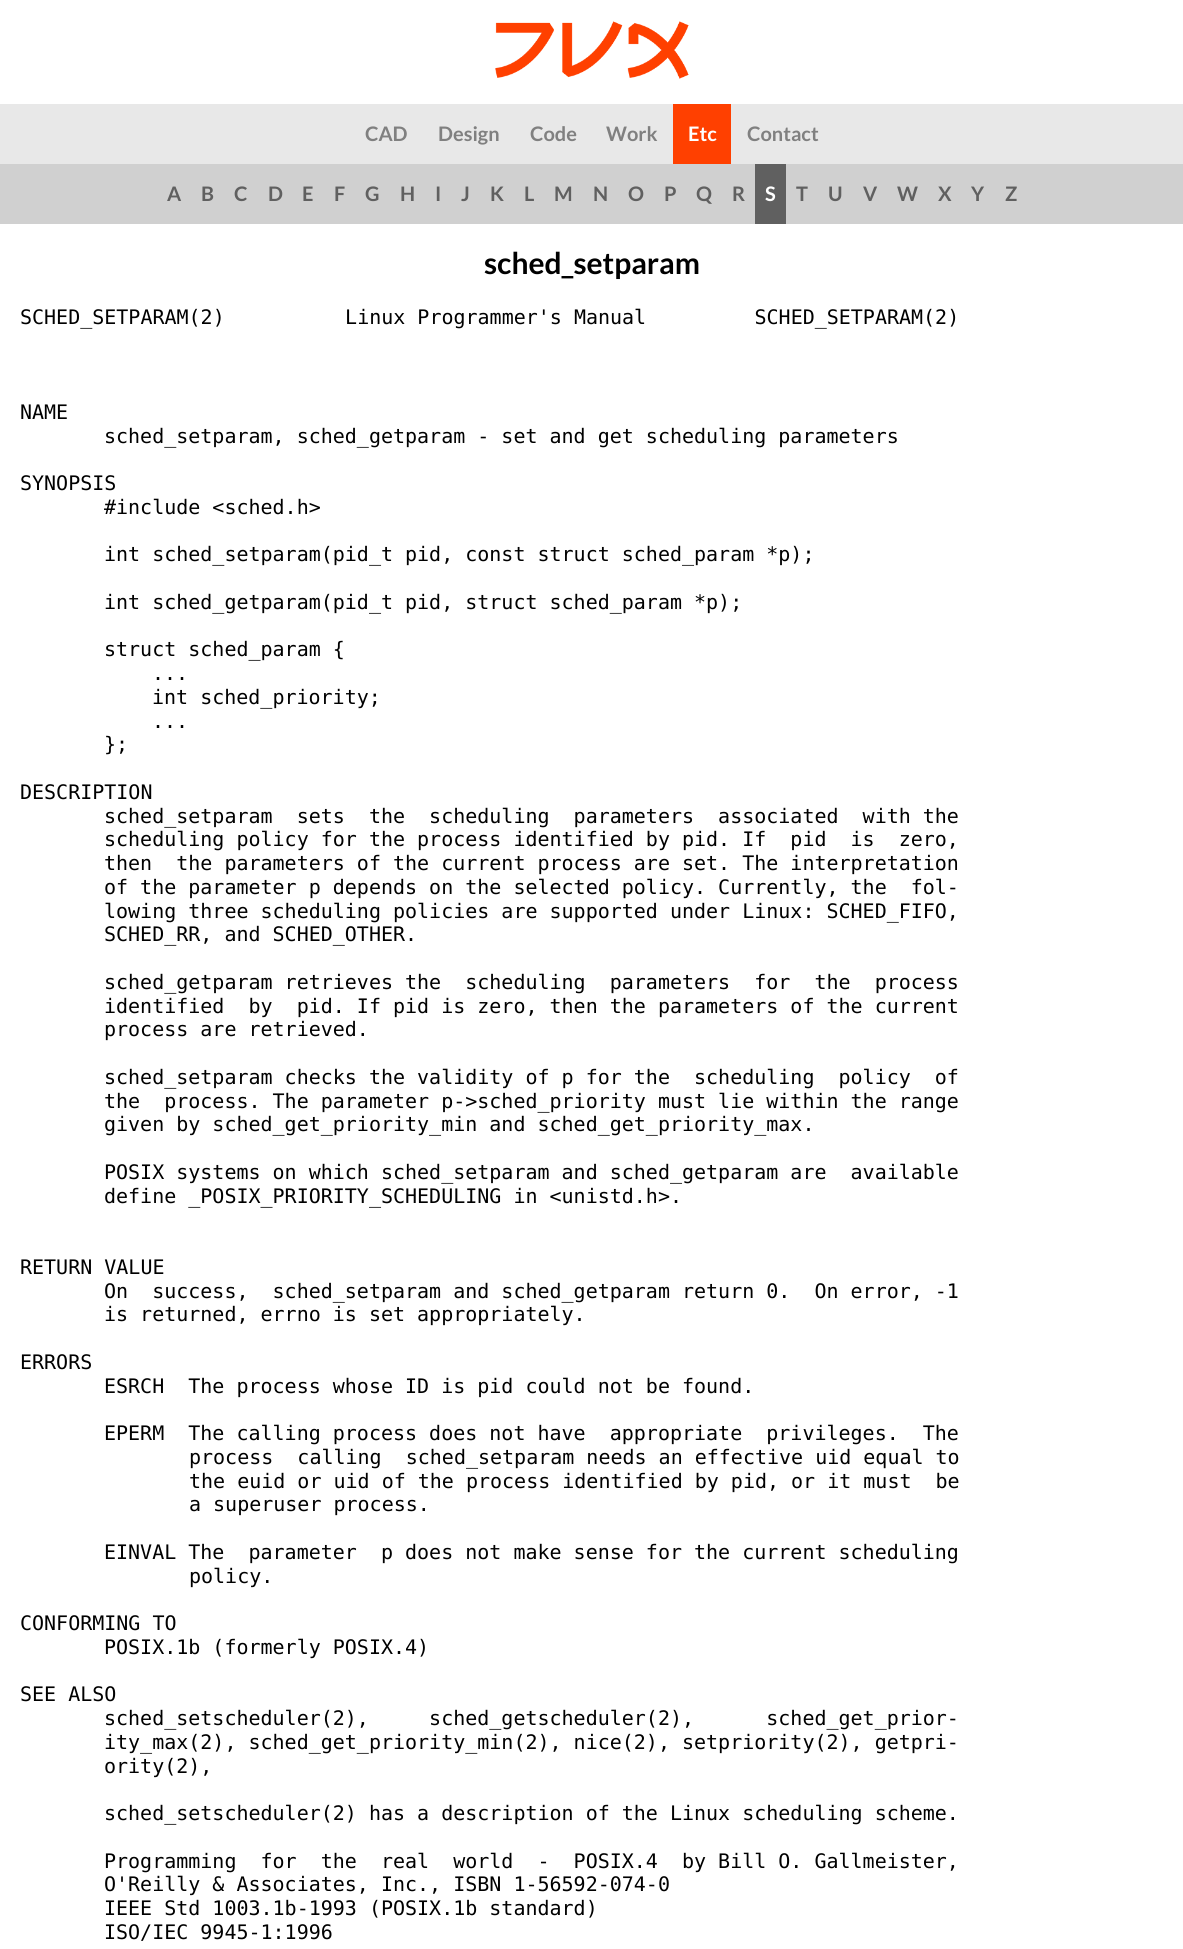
import math
import cairo


def use_color(cr, r, g, b):
  cr.set_source_rgb(r / 255, g / 255, b / 255)

def text(cr, x, y, s, family, size, color, bold=False, italic=False):
  cr.select_font_face(family, cairo.FONT_SLANT_ITALIC if italic else cairo.FONT_SLANT_NORMAL, cairo.FONT_WEIGHT_BOLD if bold else cairo.FONT_WEIGHT_NORMAL)
  cr.set_font_size(size)
  use_color(cr, *color)
  cr.move_to(x, y)
  cr.show_text(s)

def box(cr, x, y, w, h, *color):
  use_color(cr, *color)
  cr.rectangle(x, y, w, h)
  cr.fill()

def picture(cr, path, x, y, w, h):
  cr.save()
  cr.set_source_surface(cairo.ImageSurface.create_from_png(path), x, y)
  cr.rectangle(x, y, w, h)
  cr.fill()
  cr.restore()

def draw(cr):
  use_color(cr, 255, 255, 255)
  cr.paint()
  picture(cr, "img_01.png", 495, 21, 194, 58)
  box(cr, 0, 104, 1183, 60, 232, 232, 232)
  box(cr, 673, 104, 58, 60, 255, 64, 0)
  box(cr, 0, 164, 1183, 60, 208, 208, 208)
  box(cr, 755, 164, 31, 60, 96, 96, 96)
  text(cr, 365, 141, "CAD", "Lato", 20, (128, 128, 128), bold=True)
  text(cr, 438, 141, "Design", "Lato", 20, (128, 128, 128), bold=True)
  text(cr, 530, 141, "Code", "Lato", 20, (128, 128, 128), bold=True)
  text(cr, 606, 141, "Work", "Lato", 20, (128, 128, 128), bold=True)
  text(cr, 688, 141, "Etc", "Lato", 20, (255, 255, 255), bold=True)
  text(cr, 747, 141, "Contact", "Lato", 20, (128, 128, 128), bold=True)
  text(cr, 167, 201, "A", "Lato", 20, (96, 96, 96), bold=True)
  text(cr, 201, 201, "B", "Lato", 20, (96, 96, 96), bold=True)
  text(cr, 234, 201, "C", "Lato", 20, (96, 96, 96), bold=True)
  text(cr, 268, 201, "D", "Lato", 20, (96, 96, 96), bold=True)
  text(cr, 302, 201, "E", "Lato", 20, (96, 96, 96), bold=True)
  text(cr, 334, 201, "F", "Lato", 20, (96, 96, 96), bold=True)
  text(cr, 365, 201, "G", "Lato", 20, (96, 96, 96), bold=True)
  text(cr, 400, 201, "H", "Lato", 20, (96, 96, 96), bold=True)
  text(cr, 435, 201, "I", "Lato", 20, (96, 96, 96), bold=True)
  text(cr, 461, 201, "J", "Lato", 20, (96, 96, 96), bold=True)
  text(cr, 490, 201, "K", "Lato", 20, (96, 96, 96), bold=True)
  text(cr, 524, 201, "L", "Lato", 20, (96, 96, 96), bold=True)
  text(cr, 554, 201, "M", "Lato", 20, (96, 96, 96), bold=True)
  text(cr, 593, 201, "N", "Lato", 20, (96, 96, 96), bold=True)
  text(cr, 628, 201, "O", "Lato", 20, (96, 96, 96), bold=True)
  text(cr, 664, 201, "P", "Lato", 20, (96, 96, 96), bold=True)
  text(cr, 696, 201, "Q", "Lato", 20, (96, 96, 96), bold=True)
  text(cr, 732, 201, "R", "Lato", 20, (96, 96, 96), bold=True)
  text(cr, 765, 201, "S", "Lato", 20, (255, 255, 255), bold=True)
  text(cr, 796, 201, "T", "Lato", 20, (96, 96, 96), bold=True)
  text(cr, 828, 201, "U", "Lato", 20, (96, 96, 96), bold=True)
  text(cr, 863, 201, "V", "Lato", 20, (96, 96, 96), bold=True)
  text(cr, 897, 201, "W", "Lato", 20, (96, 96, 96), bold=True)
  text(cr, 938, 201, "X", "Lato", 20, (96, 96, 96), bold=True)
  text(cr, 971, 201, "Y", "Lato", 20, (96, 96, 96), bold=True)
  text(cr, 1005, 201, "Z", "Lato", 20, (96, 96, 96), bold=True)
  text(cr, 484, 274, "sched_setparam", "Lato", 30, (0, 0, 0), bold=True)
  text(cr, 20, 324, "SCHED_SETPARAM(2)          Linux Programmer's Manual         SCHED_SETPARAM(2)", "DejaVu Sans Mono", 20, (0, 0, 0))
  text(cr, 20, 419, "NAME", "DejaVu Sans Mono", 20, (0, 0, 0))
  text(cr, 104, 443, "sched_setparam, sched_getparam - set and get scheduling parameters", "DejaVu Sans Mono", 20, (0, 0, 0))
  text(cr, 20, 490, "SYNOPSIS", "DejaVu Sans Mono", 20, (0, 0, 0))
  text(cr, 104, 514, "#include <sched.h>", "DejaVu Sans Mono", 20, (0, 0, 0))
  text(cr, 104, 561, "int sched_setparam(pid_t pid, const struct sched_param *p);", "DejaVu Sans Mono", 20, (0, 0, 0))
  text(cr, 104, 609, "int sched_getparam(pid_t pid, struct sched_param *p);", "DejaVu Sans Mono", 20, (0, 0, 0))
  text(cr, 104, 656, "struct sched_param {", "DejaVu Sans Mono", 20, (0, 0, 0))
  text(cr, 152, 680, "...", "DejaVu Sans Mono", 20, (0, 0, 0))
  text(cr, 152, 704, "int sched_priority;", "DejaVu Sans Mono", 20, (0, 0, 0))
  text(cr, 152, 728, "...", "DejaVu Sans Mono", 20, (0, 0, 0))
  text(cr, 104, 751, "};", "DejaVu Sans Mono", 20, (0, 0, 0))
  text(cr, 20, 799, "DESCRIPTION", "DejaVu Sans Mono", 20, (0, 0, 0))
  text(cr, 104, 823, "sched_setparam  sets  the  scheduling  parameters  associated  with the", "DejaVu Sans Mono", 20, (0, 0, 0))
  text(cr, 104, 846, "scheduling policy for the process identified by pid. If  pid  is  zero,", "DejaVu Sans Mono", 20, (0, 0, 0))
  text(cr, 104, 870, "then  the parameters of the current process are set. The interpretation", "DejaVu Sans Mono", 20, (0, 0, 0))
  text(cr, 104, 894, "of the parameter p depends on the selected policy. Currently, the  fol-", "DejaVu Sans Mono", 20, (0, 0, 0))
  text(cr, 104, 918, "lowing three scheduling policies are supported under Linux: SCHED_FIFO,", "DejaVu Sans Mono", 20, (0, 0, 0))
  text(cr, 104, 941, "SCHED_RR, and SCHED_OTHER.", "DejaVu Sans Mono", 20, (0, 0, 0))
  text(cr, 104, 989, "sched_getparam retrieves the  scheduling  parameters  for  the  process", "DejaVu Sans Mono", 20, (0, 0, 0))
  text(cr, 104, 1013, "identified  by  pid. If pid is zero, then the parameters of the current", "DejaVu Sans Mono", 20, (0, 0, 0))
  text(cr, 104, 1036, "process are retrieved.", "DejaVu Sans Mono", 20, (0, 0, 0))
  text(cr, 104, 1084, "sched_setparam checks the validity of p for the  scheduling  policy  of", "DejaVu Sans Mono", 20, (0, 0, 0))
  text(cr, 104, 1108, "the  process. The parameter p->sched_priority must lie within the range", "DejaVu Sans Mono", 20, (0, 0, 0))
  text(cr, 104, 1131, "given by sched_get_priority_min and sched_get_priority_max.", "DejaVu Sans Mono", 20, (0, 0, 0))
  text(cr, 104, 1179, "POSIX systems on which sched_setparam and sched_getparam are  available", "DejaVu Sans Mono", 20, (0, 0, 0))
  text(cr, 104, 1203, "define _POSIX_PRIORITY_SCHEDULING in <unistd.h>.", "DejaVu Sans Mono", 20, (0, 0, 0))
  text(cr, 20, 1274, "RETURN VALUE", "DejaVu Sans Mono", 20, (0, 0, 0))
  text(cr, 104, 1298, "On  success,  sched_setparam and sched_getparam return 0.  On error, -1", "DejaVu Sans Mono", 20, (0, 0, 0))
  text(cr, 104, 1321, "is returned, errno is set appropriately.", "DejaVu Sans Mono", 20, (0, 0, 0))
  text(cr, 20, 1369, "ERRORS", "DejaVu Sans Mono", 20, (0, 0, 0))
  text(cr, 104, 1393, "ESRCH  The process whose ID is pid could not be found.", "DejaVu Sans Mono", 20, (0, 0, 0))
  text(cr, 104, 1440, "EPERM  The calling process does not have  appropriate  privileges.  The", "DejaVu Sans Mono", 20, (0, 0, 0))
  text(cr, 189, 1464, "process  calling  sched_setparam needs an effective uid equal to", "DejaVu Sans Mono", 20, (0, 0, 0))
  text(cr, 189, 1488, "the euid or uid of the process identified by pid, or it must  be", "DejaVu Sans Mono", 20, (0, 0, 0))
  text(cr, 189, 1511, "a superuser process.", "DejaVu Sans Mono", 20, (0, 0, 0))
  text(cr, 104, 1559, "EINVAL The  parameter  p does not make sense for the current scheduling", "DejaVu Sans Mono", 20, (0, 0, 0))
  text(cr, 189, 1583, "policy.", "DejaVu Sans Mono", 20, (0, 0, 0))
  text(cr, 20, 1630, "CONFORMING TO", "DejaVu Sans Mono", 20, (0, 0, 0))
  text(cr, 104, 1654, "POSIX.1b (formerly POSIX.4)", "DejaVu Sans Mono", 20, (0, 0, 0))
  text(cr, 20, 1701, "SEE ALSO", "DejaVu Sans Mono", 20, (0, 0, 0))
  text(cr, 104, 1725, "sched_setscheduler(2),     sched_getscheduler(2),      sched_get_prior-", "DejaVu Sans Mono", 20, (0, 0, 0))
  text(cr, 104, 1749, "ity_max(2), sched_get_priority_min(2), nice(2), setpriority(2), getpri-", "DejaVu Sans Mono", 20, (0, 0, 0))
  text(cr, 104, 1773, "ority(2),", "DejaVu Sans Mono", 20, (0, 0, 0))
  text(cr, 104, 1820, "sched_setscheduler(2) has a description of the Linux scheduling scheme.", "DejaVu Sans Mono", 20, (0, 0, 0))
  text(cr, 104, 1868, "Programming  for  the  real  world  -  POSIX.4  by Bill O. Gallmeister,", "DejaVu Sans Mono", 20, (0, 0, 0))
  text(cr, 104, 1891, "O'Reilly & Associates, Inc., ISBN 1-56592-074-0", "DejaVu Sans Mono", 20, (0, 0, 0))
  text(cr, 104, 1915, "IEEE Std 1003.1b-1993 (POSIX.1b standard)", "DejaVu Sans Mono", 20, (0, 0, 0))
  text(cr, 104, 1939, "ISO/IEC 9945-1:1996", "DejaVu Sans Mono", 20, (0, 0, 0))


surface = cairo.ImageSurface(cairo.FORMAT_RGB24, 1183, 1949)
cr = cairo.Context(surface)
options = cairo.FontOptions()
options.set_hint_metrics(cairo.HINT_METRICS_OFF)
options.set_hint_style(cairo.HINT_STYLE_NONE)
cr.set_font_options(options)
cr.set_miter_limit(4)
draw(cr)
surface.write_to_png("out.png")
